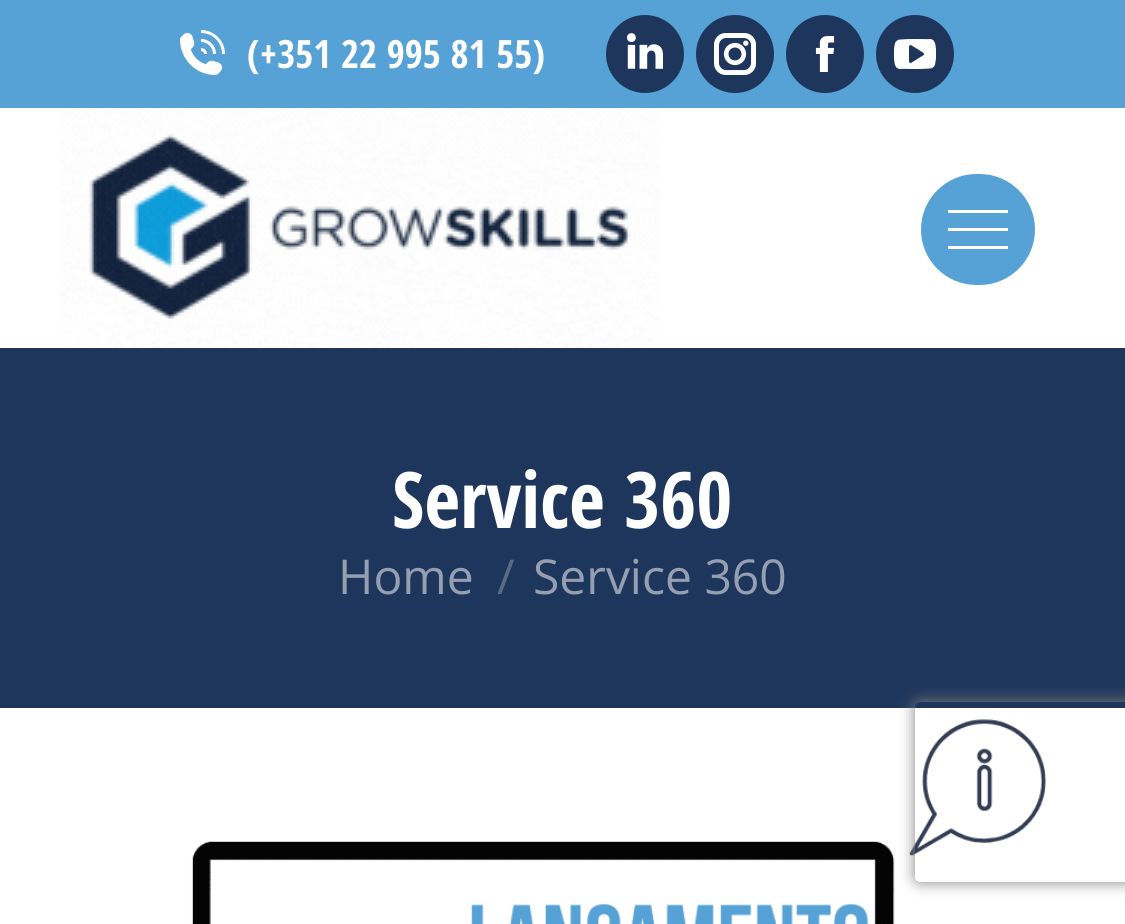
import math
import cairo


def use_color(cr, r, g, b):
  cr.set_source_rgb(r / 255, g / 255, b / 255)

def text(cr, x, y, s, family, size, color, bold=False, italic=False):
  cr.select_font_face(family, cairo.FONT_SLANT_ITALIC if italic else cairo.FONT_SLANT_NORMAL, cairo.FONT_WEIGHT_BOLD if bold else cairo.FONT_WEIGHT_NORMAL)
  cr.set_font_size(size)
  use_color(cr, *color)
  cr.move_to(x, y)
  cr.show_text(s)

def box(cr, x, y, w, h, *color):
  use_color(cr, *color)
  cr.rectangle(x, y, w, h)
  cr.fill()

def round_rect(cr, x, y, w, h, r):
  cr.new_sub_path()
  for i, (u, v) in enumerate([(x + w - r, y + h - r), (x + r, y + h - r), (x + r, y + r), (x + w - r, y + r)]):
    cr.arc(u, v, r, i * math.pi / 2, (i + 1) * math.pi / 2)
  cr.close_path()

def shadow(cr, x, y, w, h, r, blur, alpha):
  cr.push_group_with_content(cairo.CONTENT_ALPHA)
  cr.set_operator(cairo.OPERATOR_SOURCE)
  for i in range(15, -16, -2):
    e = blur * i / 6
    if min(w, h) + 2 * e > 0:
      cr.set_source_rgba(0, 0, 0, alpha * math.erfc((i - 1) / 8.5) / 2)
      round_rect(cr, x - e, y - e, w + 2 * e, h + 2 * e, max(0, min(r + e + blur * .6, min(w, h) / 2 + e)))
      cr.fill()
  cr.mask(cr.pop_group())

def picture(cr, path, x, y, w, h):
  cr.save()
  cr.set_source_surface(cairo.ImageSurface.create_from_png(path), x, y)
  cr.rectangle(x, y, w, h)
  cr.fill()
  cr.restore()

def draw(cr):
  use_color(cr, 255, 255, 255)
  cr.paint()
  box(cr, 0, 0, 1125, 108, 86, 162, 214)
  picture(cr, "img_01.png", 180, 30, 45, 45)
  use_color(cr, 31, 54, 92)
  cr.arc(645, 54, 39, 0, 2 * math.pi)
  cr.fill()
  picture(cr, "img_02.png", 627, 33, 36, 36)
  cr.arc(735, 54, 39, 0, 2 * math.pi)
  cr.fill()
  picture(cr, "img_03.png", 714, 33, 42, 42)
  cr.arc(825, 54, 39, 0, 2 * math.pi)
  cr.fill()
  picture(cr, "img_04.png", 815, 36, 20, 36)
  cr.arc(915, 54, 39, 0, 2 * math.pi)
  cr.fill()
  picture(cr, "img_05.png", 894, 39, 42, 30)
  picture(cr, "img_06.png", 60, 108, 600, 240)
  use_color(cr, 86, 162, 214)
  round_rect(cr, 921, 174, 114, 111, 55.5)
  cr.fill()
  box(cr, 948, 210, 60, 3, 255, 255, 255)
  box(cr, 948, 228, 60, 3, 255, 255, 255)
  box(cr, 948, 246, 60, 3, 255, 255, 255)
  box(cr, 0, 348, 1125, 360, 31, 54, 92)
  picture(cr, "img_07.png", 191, 719, 856, 205)
  cr.save()
  cr.set_fill_rule(cairo.FILL_RULE_EVEN_ODD)
  cr.new_path()
  cr.move_to(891, 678)
  cr.line_to(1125, 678)
  cr.line_to(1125, 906)
  cr.line_to(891, 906)
  cr.close_path()
  cr.move_to(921, 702)
  cr.line_to(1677, 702)
  cr.curve_to(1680.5, 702, 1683, 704.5, 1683, 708)
  cr.line_to(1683, 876)
  cr.curve_to(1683, 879.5, 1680.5, 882, 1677, 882)
  cr.line_to(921, 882)
  cr.curve_to(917.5, 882, 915, 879.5, 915, 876)
  cr.line_to(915, 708)
  cr.curve_to(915, 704.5, 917.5, 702, 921, 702)
  cr.close_path()
  cr.clip()
  use_color(cr, 128, 128, 128)
  shadow(cr, 915, 702, 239, 180, 6, 7.5, 1)
  cr.restore()
  text(cr, 247, 68, "(+351 22 995 81 55)", "Open Sans Condensed", 39, (255, 255, 255), bold=True)
  text(cr, 392, 528, "Service 360", "Open Sans Condensed", 78, (255, 255, 255), bold=True)
  text(cr, 338, 594, "Home", "Open Sans", 48, (148, 159, 178))
  text(cr, 497, 594, "/", "Open Sans", 48, (90, 107, 135))
  text(cr, 533, 594, "Service 360", "Open Sans", 48, (148, 159, 178))


surface = cairo.ImageSurface(cairo.FORMAT_RGB24, 1125, 924)
cr = cairo.Context(surface)
options = cairo.FontOptions()
options.set_hint_metrics(cairo.HINT_METRICS_OFF)
options.set_hint_style(cairo.HINT_STYLE_NONE)
cr.set_font_options(options)
cr.set_miter_limit(4)
draw(cr)
surface.write_to_png("out.png")
